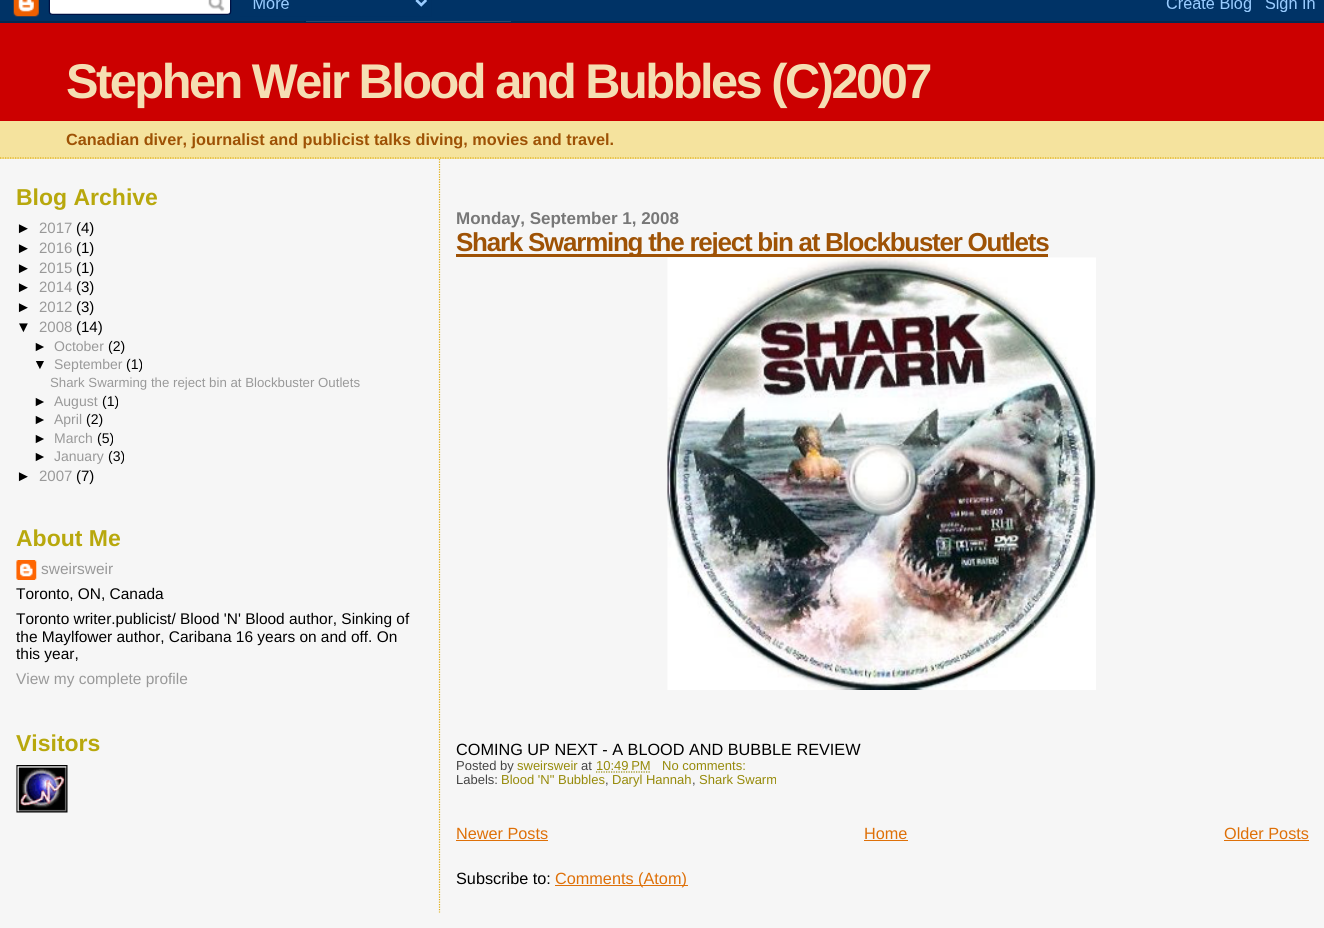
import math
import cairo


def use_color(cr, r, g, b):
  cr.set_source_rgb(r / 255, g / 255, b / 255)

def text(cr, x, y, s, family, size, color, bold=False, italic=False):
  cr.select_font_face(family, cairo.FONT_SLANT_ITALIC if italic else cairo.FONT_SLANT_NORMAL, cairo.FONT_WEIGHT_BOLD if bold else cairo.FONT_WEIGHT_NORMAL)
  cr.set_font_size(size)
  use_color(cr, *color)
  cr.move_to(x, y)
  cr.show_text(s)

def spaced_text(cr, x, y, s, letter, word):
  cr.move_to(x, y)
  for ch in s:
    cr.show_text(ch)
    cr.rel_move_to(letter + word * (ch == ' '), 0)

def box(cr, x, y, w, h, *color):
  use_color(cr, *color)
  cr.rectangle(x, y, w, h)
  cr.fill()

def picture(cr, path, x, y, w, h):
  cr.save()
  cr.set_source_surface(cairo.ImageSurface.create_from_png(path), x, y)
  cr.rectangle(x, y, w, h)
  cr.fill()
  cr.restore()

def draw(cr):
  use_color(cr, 246, 246, 246)
  cr.paint()
  picture(cr, "img_01.png", 0, 0, 1324, 23)
  box(cr, 0, 121, 1324, 38, 245, 227, 158)
  cr.new_path()
  cr.move_to(0, 158)
  cr.line_to(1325, 158)
  use_color(cr, 224, 173, 18)
  cr.set_line_width(1.2)
  cr.set_dash([1.25, 1.25])
  cr.stroke()
  box(cr, 0, 23, 1324, 98, 204, 0, 0)
  picture(cr, "img_02.png", 16, 560, 21, 20)
  picture(cr, "img_03.png", 16, 765, 52, 48)
  cr.new_path()
  cr.move_to(439.5, 159)
  cr.line_to(439.5, 912.5)
  use_color(cr, 224, 173, 18)
  cr.stroke()
  box(cr, 456, 254, 592, 3, 158, 82, 5)
  picture(cr, "img_04.png", 667, 257, 429, 433)
  cr.new_path()
  cr.move_to(596, 772)
  cr.line_to(650.5, 772)
  use_color(cr, 150, 138, 10)
  cr.stroke()
  box(cr, 456, 840, 92, 1, 222, 112, 8)
  box(cr, 864, 840, 44, 1, 222, 112, 8)
  box(cr, 1224, 840, 85, 1, 222, 112, 8)
  box(cr, 555, 885, 133, 1, 222, 112, 8)
  cr.select_font_face("Liberation Sans", cairo.FONT_SLANT_NORMAL, cairo.FONT_WEIGHT_BOLD)
  cr.set_font_size(48.75)
  use_color(cr, 245, 222, 179)
  spaced_text(cr, 66, 98, "Stephen Weir Blood and Bubbles (C)2007", -2.5, 0)
  text(cr, 66, 145, "Canadian diver, journalist and publicist talks diving, movies and travel.", "Liberation Sans", 16.25, (158, 82, 5), bold=True)
  text(cr, 16, 205, "Blog Archive", "Liberation Sans", 23, (184, 168, 13), bold=True)
  text(cr, 16, 233, "►", "Liberation Sans", 15, (0, 0, 0))
  text(cr, 39, 233, "2017", "Liberation Sans", 15, (153, 153, 153))
  text(cr, 76, 233, "(4)", "Liberation Sans", 15, (0, 0, 0))
  text(cr, 16, 253, "►", "Liberation Sans", 15, (0, 0, 0))
  text(cr, 39, 253, "2016", "Liberation Sans", 15, (153, 153, 153))
  text(cr, 76, 253, "(1)", "Liberation Sans", 15, (0, 0, 0))
  text(cr, 16, 273, "►", "Liberation Sans", 15, (0, 0, 0))
  text(cr, 39, 273, "2015", "Liberation Sans", 15, (153, 153, 153))
  text(cr, 76, 273, "(1)", "Liberation Sans", 15, (0, 0, 0))
  text(cr, 16, 292, "►", "Liberation Sans", 15, (0, 0, 0))
  text(cr, 39, 292, "2014", "Liberation Sans", 15, (153, 153, 153))
  text(cr, 76, 292, "(3)", "Liberation Sans", 15, (0, 0, 0))
  text(cr, 16, 312, "►", "Liberation Sans", 15, (0, 0, 0))
  text(cr, 39, 312, "2012", "Liberation Sans", 15, (153, 153, 153))
  text(cr, 76, 312, "(3)", "Liberation Sans", 15, (0, 0, 0))
  text(cr, 16, 332, "▼", "Liberation Sans", 15, (0, 0, 0))
  text(cr, 39, 332, "2008", "Liberation Sans", 15, (153, 153, 153))
  text(cr, 76, 332, "(14)", "Liberation Sans", 15, (0, 0, 0))
  text(cr, 33, 351, "►", "Liberation Sans", 14, (0, 0, 0))
  text(cr, 54, 351, "October", "Liberation Sans", 14, (153, 153, 153))
  text(cr, 108, 351, "(2)", "Liberation Sans", 14, (0, 0, 0))
  text(cr, 33, 369, "▼", "Liberation Sans", 14, (0, 0, 0))
  text(cr, 54, 369, "September", "Liberation Sans", 14, (153, 153, 153))
  text(cr, 126, 369, "(1)", "Liberation Sans", 14, (0, 0, 0))
  text(cr, 50, 387, "Shark Swarming the reject bin at Blockbuster Outlets", "Liberation Sans", 13.25, (153, 153, 153))
  text(cr, 33, 406, "►", "Liberation Sans", 14, (0, 0, 0))
  text(cr, 54, 406, "August", "Liberation Sans", 14, (153, 153, 153))
  text(cr, 102, 406, "(1)", "Liberation Sans", 14, (0, 0, 0))
  text(cr, 33, 424, "►", "Liberation Sans", 14, (0, 0, 0))
  text(cr, 54, 424, "April", "Liberation Sans", 14, (153, 153, 153))
  text(cr, 86, 424, "(2)", "Liberation Sans", 14, (0, 0, 0))
  text(cr, 33, 443, "►", "Liberation Sans", 14, (0, 0, 0))
  text(cr, 54, 443, "March", "Liberation Sans", 14, (153, 153, 153))
  text(cr, 97, 443, "(5)", "Liberation Sans", 14, (0, 0, 0))
  text(cr, 33, 461, "►", "Liberation Sans", 14, (0, 0, 0))
  text(cr, 54, 461, "January", "Liberation Sans", 14, (153, 153, 153))
  text(cr, 108, 461, "(3)", "Liberation Sans", 14, (0, 0, 0))
  text(cr, 16, 481, "►", "Liberation Sans", 15, (0, 0, 0))
  text(cr, 39, 481, "2007", "Liberation Sans", 15, (153, 153, 153))
  text(cr, 76, 481, "(7)", "Liberation Sans", 15, (0, 0, 0))
  text(cr, 16, 546, "About Me", "Liberation Sans", 23, (184, 168, 13), bold=True)
  text(cr, 41, 574, "sweirsweir", "Liberation Sans", 15.45, (153, 153, 153))
  text(cr, 16, 599, "Toronto, ON, Canada", "Liberation Sans", 15.45, (0, 0, 0))
  text(cr, 16, 624, "Toronto writer.publicist/ Blood 'N' Blood author, Sinking of", "Liberation Sans", 15.45, (0, 0, 0))
  text(cr, 16, 642, "the Maylfower author, Caribana 16 years on and off. On", "Liberation Sans", 15.45, (0, 0, 0))
  text(cr, 16, 659, "this year,", "Liberation Sans", 15.45, (0, 0, 0))
  text(cr, 16, 684, "View my complete profile", "Liberation Sans", 15.45, (153, 153, 153))
  text(cr, 16, 751, "Visitors", "Liberation Sans", 23, (184, 168, 13), bold=True)
  text(cr, 456, 224, "Monday, September 1, 2008", "Liberation Sans", 17, (119, 119, 119), bold=True)
  cr.set_font_size(26)
  use_color(cr, 158, 82, 5)
  spaced_text(cr, 456, 251, "Shark Swarming the reject bin at Blockbuster Outlets", -1.25, 0)
  text(cr, 456, 755, "COMING UP NEXT - A BLOOD AND BUBBLE REVIEW", "Liberation Sans", 16.25, (0, 0, 0))
  text(cr, 456, 770, "Posted by", "Liberation Sans", 13, (68, 68, 68))
  text(cr, 517, 770, "sweirsweir", "Liberation Sans", 13, (150, 138, 10))
  text(cr, 581, 770, "at", "Liberation Sans", 13, (68, 68, 68))
  text(cr, 596, 770, "10:49 PM", "Liberation Sans", 13, (150, 138, 10))
  text(cr, 662, 770, "No comments:", "Liberation Sans", 13, (150, 138, 10))
  text(cr, 456, 784, "Labels:", "Liberation Sans", 13, (68, 68, 68))
  text(cr, 501, 784, "Blood 'N\" Bubbles", "Liberation Sans", 13, (150, 138, 10))
  text(cr, 605, 784, ",", "Liberation Sans", 13, (68, 68, 68))
  text(cr, 612, 784, "Daryl Hannah", "Liberation Sans", 13, (150, 138, 10))
  text(cr, 692, 784, ",", "Liberation Sans", 13, (68, 68, 68))
  text(cr, 699, 784, "Shark Swarm", "Liberation Sans", 13, (150, 138, 10))
  text(cr, 456, 839, "Newer Posts", "Liberation Sans", 16.25, (222, 112, 8))
  text(cr, 864, 839, "Home", "Liberation Sans", 16.25, (222, 112, 8))
  text(cr, 1224, 839, "Older Posts", "Liberation Sans", 16.25, (222, 112, 8))
  text(cr, 456, 884, "Subscribe to:", "Liberation Sans", 16.25, (0, 0, 0))
  text(cr, 555, 884, "Comments (Atom)", "Liberation Sans", 16.25, (222, 112, 8))


surface = cairo.ImageSurface(cairo.FORMAT_RGB24, 1324, 928)
cr = cairo.Context(surface)
options = cairo.FontOptions()
options.set_hint_metrics(cairo.HINT_METRICS_OFF)
options.set_hint_style(cairo.HINT_STYLE_NONE)
cr.set_font_options(options)
cr.set_miter_limit(4)
draw(cr)
surface.write_to_png("out.png")
